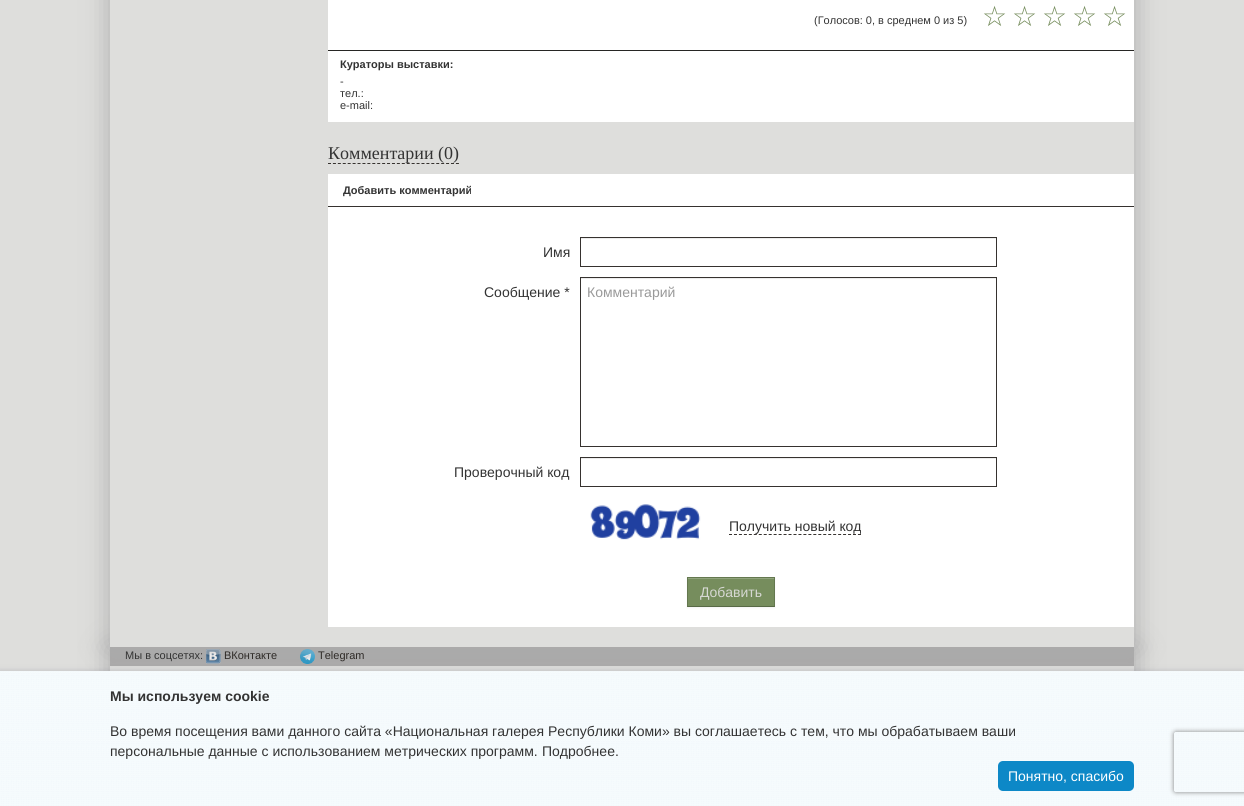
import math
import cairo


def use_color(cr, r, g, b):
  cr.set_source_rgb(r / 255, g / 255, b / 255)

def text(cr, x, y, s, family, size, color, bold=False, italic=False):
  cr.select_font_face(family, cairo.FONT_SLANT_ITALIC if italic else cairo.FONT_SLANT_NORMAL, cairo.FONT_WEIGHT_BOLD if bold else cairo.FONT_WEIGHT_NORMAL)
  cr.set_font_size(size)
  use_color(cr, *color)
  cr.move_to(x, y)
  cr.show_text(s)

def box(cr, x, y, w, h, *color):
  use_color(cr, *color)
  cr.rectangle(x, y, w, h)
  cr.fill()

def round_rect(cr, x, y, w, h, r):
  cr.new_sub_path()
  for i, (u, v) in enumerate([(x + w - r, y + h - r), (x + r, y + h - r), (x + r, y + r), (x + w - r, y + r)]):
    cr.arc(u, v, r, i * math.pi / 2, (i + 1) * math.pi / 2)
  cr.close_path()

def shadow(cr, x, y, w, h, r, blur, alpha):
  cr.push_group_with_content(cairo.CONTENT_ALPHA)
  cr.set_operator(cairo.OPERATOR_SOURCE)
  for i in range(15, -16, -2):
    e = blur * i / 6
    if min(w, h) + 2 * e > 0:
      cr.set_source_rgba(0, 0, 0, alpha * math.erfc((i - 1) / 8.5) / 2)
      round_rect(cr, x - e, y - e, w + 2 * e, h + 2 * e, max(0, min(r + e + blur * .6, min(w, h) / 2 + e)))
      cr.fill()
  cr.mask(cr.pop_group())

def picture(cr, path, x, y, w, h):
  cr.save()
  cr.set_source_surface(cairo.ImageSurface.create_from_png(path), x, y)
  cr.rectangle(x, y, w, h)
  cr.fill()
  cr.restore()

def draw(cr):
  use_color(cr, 222, 222, 220)
  cr.paint()
  cr.save()
  cr.set_fill_rule(cairo.FILL_RULE_EVEN_ODD)
  cr.new_path()
  cr.move_to(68, 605)
  cr.line_to(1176, 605)
  cr.line_to(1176, 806)
  cr.line_to(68, 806)
  cr.close_path()
  cr.move_to(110, 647)
  cr.line_to(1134, 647)
  cr.line_to(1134, 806)
  cr.line_to(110, 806)
  cr.close_path()
  cr.clip()
  use_color(cr, 172, 172, 172)
  shadow(cr, 110, 647, 1024, 159, 0, 13.5, 1)
  cr.restore()
  box(cr, 110, 647, 1024, 19, 170, 169, 169)
  picture(cr, "img_02.png", 206, 649, 15, 15)
  picture(cr, "img_03.png", 300, 649, 15, 15)
  use_color(cr, 172, 172, 172)
  shadow(cr, 110, -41, 1024, 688, 0, 13.5, 1)
  box(cr, 110, 0, 1024, 647, 222, 222, 220)
  box(cr, 328, 0, 806, 50, 255, 255, 255)
  box(cr, 328, 50, 806, 1, 39, 38, 36)
  box(cr, 328, 51, 806, 71, 255, 255, 255)
  cr.new_path()
  cr.move_to(328, 163.5)
  cr.line_to(459, 163.5)
  use_color(cr, 54, 50, 47)
  cr.set_line_width(1)
  cr.set_dash([3, 1.92])
  cr.stroke()
  box(cr, 328, 174, 806, 453, 255, 255, 255)
  box(cr, 328, 206, 806, 1, 54, 50, 47)
  box(cr, 581, 238, 415, 1, 236, 236, 236)
  cr.rectangle(580.5, 237.5, 416, 29)
  use_color(cr, 54, 50, 47)
  cr.set_dash([])
  cr.stroke()
  box(cr, 581, 278, 415, 1, 236, 236, 236)
  cr.rectangle(580.5, 277.5, 416, 169)
  use_color(cr, 54, 50, 47)
  cr.stroke()
  box(cr, 581, 458, 415, 1, 236, 236, 236)
  cr.rectangle(580.5, 457.5, 416, 29)
  use_color(cr, 54, 50, 47)
  cr.stroke()
  picture(cr, "img_01.png", 590, 504, 111, 36)
  cr.new_path()
  cr.move_to(729, 534.5)
  cr.line_to(861, 534.5)
  cr.set_dash([3, 1.96])
  cr.stroke()
  use_color(cr, 0, 0, 0)
  shadow(cr, 687, 578, 88, 30, 0, 1, 0.05)
  box(cr, 687, 577, 88, 30, 118, 141, 93)
  box(cr, 688, 578, 86, 1, 145, 164, 125)
  use_color(cr, 100, 120, 79)
  cr.new_path()
  cr.move_to(687, 577)
  cr.line_to(775, 577)
  cr.line_to(774, 578)
  cr.line_to(688, 578)
  cr.close_path()
  cr.fill()
  cr.set_source_rgba(0, 0, 0, 0.15)
  cr.new_path()
  cr.move_to(775, 577)
  cr.line_to(775, 607)
  cr.line_to(774, 606)
  cr.line_to(774, 578)
  cr.close_path()
  cr.fill()
  cr.set_source_rgba(0, 0, 0, 0.25)
  cr.new_path()
  cr.move_to(775, 607)
  cr.line_to(687, 607)
  cr.line_to(688, 606)
  cr.line_to(774, 606)
  cr.close_path()
  cr.fill()
  cr.set_source_rgba(0, 0, 0, 0.15)
  cr.new_path()
  cr.move_to(687, 607)
  cr.line_to(687, 577)
  cr.line_to(688, 578)
  cr.line_to(688, 606)
  cr.close_path()
  cr.fill()
  use_color(cr, 61, 62, 93)
  shadow(cr, -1, 674, 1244, 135, 0, 4, 0.48)
  picture(cr, "img_04.png", 0, 671, 1244, 135)
  use_color(cr, 13, 136, 199)
  round_rect(cr, 998, 761, 136, 30, 5)
  cr.fill()
  cr.save()
  cr.set_fill_rule(cairo.FILL_RULE_EVEN_ODD)
  cr.new_path()
  cr.move_to(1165, 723)
  cr.line_to(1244, 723)
  cr.line_to(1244, 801)
  cr.line_to(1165, 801)
  cr.close_path()
  cr.move_to(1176, 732)
  cr.line_to(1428, 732)
  cr.curve_to(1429, 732, 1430, 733, 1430, 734)
  cr.line_to(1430, 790)
  cr.curve_to(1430, 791, 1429, 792, 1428, 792)
  cr.line_to(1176, 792)
  cr.curve_to(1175, 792, 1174, 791, 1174, 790)
  cr.line_to(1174, 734)
  cr.curve_to(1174, 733, 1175, 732, 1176, 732)
  cr.close_path()
  cr.clip()
  use_color(cr, 128, 128, 128)
  shadow(cr, 1174, 732, 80, 60, 2, 2.5, 1)
  cr.restore()
  text(cr, 814, 24, "(Голосов: 0, в среднем 0 из 5)", "Liberation Sans", 11, (51, 51, 51))
  text(cr, 982, 26, "☆", "DejaVu Sans", 28, (118, 141, 93))
  text(cr, 1012, 26, "☆", "DejaVu Sans", 28, (118, 141, 93))
  text(cr, 1042, 26, "☆", "DejaVu Sans", 28, (118, 141, 93))
  text(cr, 1072, 26, "☆", "DejaVu Sans", 28, (118, 141, 93))
  text(cr, 1102, 26, "☆", "DejaVu Sans", 28, (118, 141, 93))
  text(cr, 340, 68, "Кураторы выставки:", "Liberation Sans", 11, (51, 51, 51), bold=True)
  text(cr, 340, 85, "-", "Liberation Sans", 11, (51, 51, 51))
  text(cr, 340, 97, "тел.:", "Liberation Sans", 11, (51, 51, 51))
  text(cr, 340, 109, "e-mail:", "Liberation Sans", 11, (51, 51, 51))
  text(cr, 328, 159, "Комментарии (0)", "Liberation Serif", 18, (51, 51, 51))
  text(cr, 343, 194, "Добавить комментарий", "Liberation Sans", 11, (51, 51, 51), bold=True)
  text(cr, 543, 257, "Имя", "Liberation Sans", 14, (51, 51, 51))
  text(cr, 484, 297, "Сообщение *", "Liberation Sans", 14, (51, 51, 51))
  text(cr, 587, 297, "Комментарий", "Liberation Sans", 14, (153, 153, 153))
  text(cr, 454, 477, "Проверочный код", "Liberation Sans", 14, (51, 51, 51))
  text(cr, 729, 531, "Получить новый код", "Liberation Sans", 14, (51, 51, 51))
  text(cr, 700, 597, "Добавить", "Liberation Sans", 14, (214, 216, 211))
  text(cr, 125, 659, "Мы в соцсетях:", "Liberation Sans", 11, (51, 51, 51))
  text(cr, 224, 659, "ВКонтакте", "Liberation Sans", 11, (46, 42, 39))
  text(cr, 318, 659, "Telegram", "Liberation Sans", 11, (46, 42, 39))
  text(cr, 110, 701, "Мы используем cookie", "Liberation Sans", 14, (51, 51, 51), bold=True)
  text(cr, 110, 736, "Во время посещения вами данного сайта «Национальная галерея Республики Коми» вы соглашаетесь с тем, что мы обрабатываем ваши", "Liberation Sans", 14, (51, 51, 51))
  text(cr, 110, 756, "персональные данные с использованием метрических программ.", "Liberation Sans", 14, (51, 51, 51))
  text(cr, 542, 756, "Подробнее.", "Liberation Sans", 14, (51, 51, 51))
  text(cr, 1008, 781, "Понятно, спасибо", "Liberation Sans", 14, (255, 255, 255))


surface = cairo.ImageSurface(cairo.FORMAT_RGB24, 1244, 806)
cr = cairo.Context(surface)
options = cairo.FontOptions()
options.set_hint_metrics(cairo.HINT_METRICS_OFF)
options.set_hint_style(cairo.HINT_STYLE_NONE)
cr.set_font_options(options)
cr.set_miter_limit(4)
draw(cr)
surface.write_to_png("out.png")
